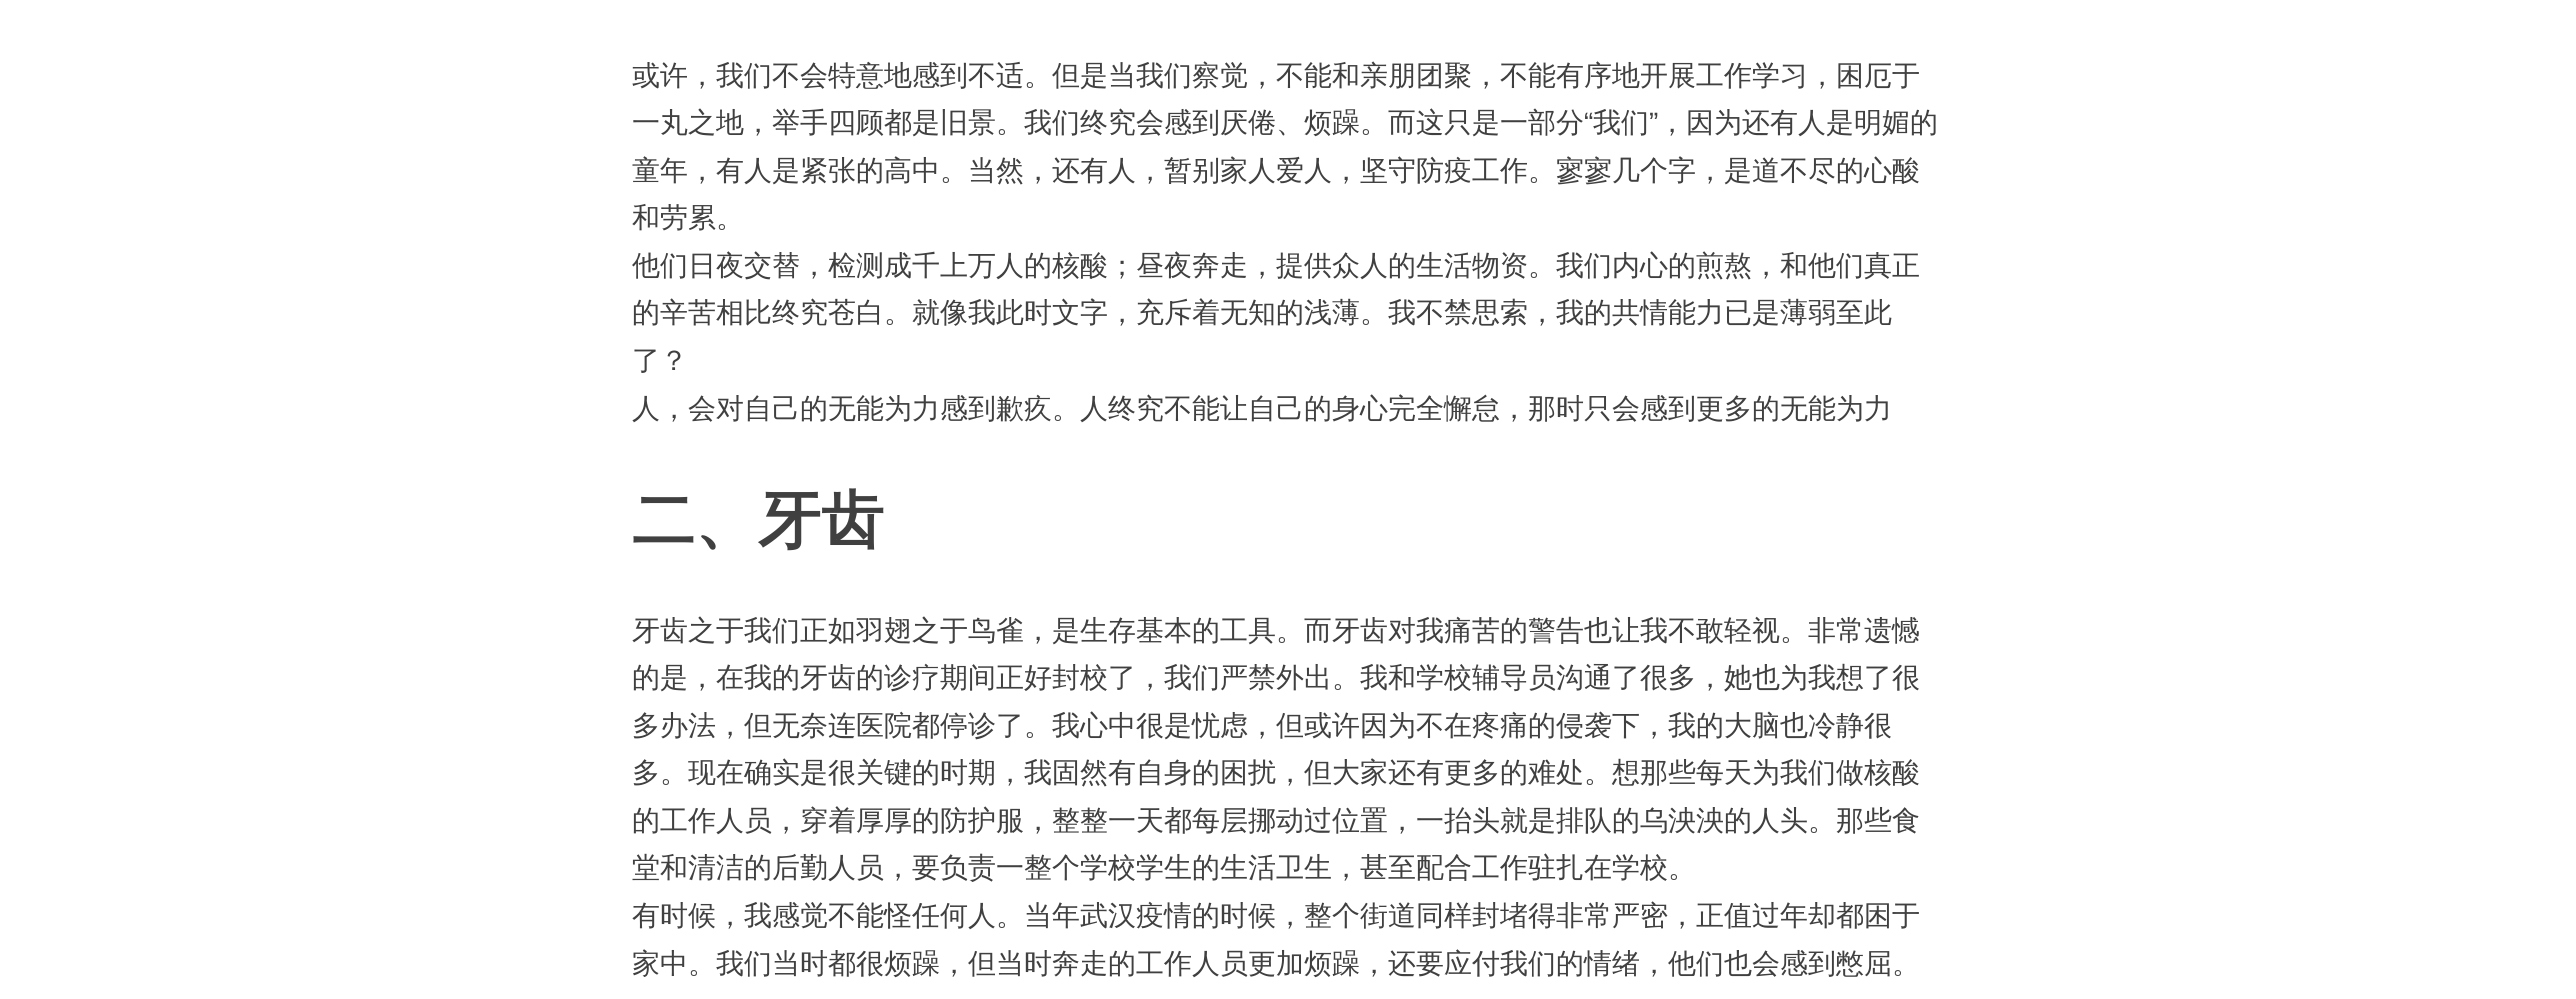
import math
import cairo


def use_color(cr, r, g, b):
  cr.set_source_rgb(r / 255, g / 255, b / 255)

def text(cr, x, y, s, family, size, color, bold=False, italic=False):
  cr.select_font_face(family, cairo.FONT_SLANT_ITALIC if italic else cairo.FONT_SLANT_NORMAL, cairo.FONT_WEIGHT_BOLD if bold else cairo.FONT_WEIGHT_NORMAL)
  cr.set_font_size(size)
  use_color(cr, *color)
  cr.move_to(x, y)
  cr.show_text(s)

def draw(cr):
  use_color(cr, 255, 255, 255)
  cr.paint()
  text(cr, 632, 85, "或许，我们不会特意地感到不适。但是当我们察觉，不能和亲朋团聚，不能有序地开展工作学习，困厄于", "WenQuanYi Zen Hei Medium", 28, (64, 64, 64))
  text(cr, 632, 132, "一丸之地，举手四顾都是旧景。我们终究会感到厌倦、烦躁。而这只是一部分", "WenQuanYi Zen Hei Medium", 28, (64, 64, 64))
  text(cr, 1584, 132, "“", "Liberation Sans", 28, (64, 64, 64))
  text(cr, 1593, 132, "我们", "WenQuanYi Zen Hei Medium", 28, (64, 64, 64))
  text(cr, 1649, 132, "”", "Liberation Sans", 28, (64, 64, 64))
  text(cr, 1658, 132, "，因为还有人是明媚的", "WenQuanYi Zen Hei Medium", 28, (64, 64, 64))
  text(cr, 632, 180, "童年，有人是紧张的高中。当然，还有人，暂别家人爱人，坚守防疫工作。寥寥几个字，是道不尽的心酸", "WenQuanYi Zen Hei Medium", 28, (64, 64, 64))
  text(cr, 632, 227, "和劳累。", "WenQuanYi Zen Hei Medium", 28, (64, 64, 64))
  text(cr, 632, 275, "他们日夜交替，检测成千上万人的核酸；昼夜奔走，提供众人的生活物资。我们内心的煎熬，和他们真正", "WenQuanYi Zen Hei Medium", 28, (64, 64, 64))
  text(cr, 632, 322, "的辛苦相比终究苍白。就像我此时文字，充斥着无知的浅薄。我不禁思索，我的共情能力已是薄弱至此", "WenQuanYi Zen Hei Medium", 28, (64, 64, 64))
  text(cr, 632, 370, "了？", "WenQuanYi Zen Hei Medium", 28, (64, 64, 64))
  text(cr, 632, 418, "人，会对自己的无能为力感到歉疚。人终究不能让自己的身心完全懈怠，那时只会感到更多的无能为力", "WenQuanYi Zen Hei Medium", 28, (64, 64, 64))
  text(cr, 632, 542, "二、牙齿", "WenQuanYi Zen Hei", 63, (64, 64, 64), bold=True)
  text(cr, 632, 640, "牙齿之于我们正如羽翅之于鸟雀，是生存基本的工具。而牙齿对我痛苦的警告也让我不敢轻视。非常遗憾", "WenQuanYi Zen Hei Medium", 28, (64, 64, 64))
  text(cr, 632, 687, "的是，在我的牙齿的诊疗期间正好封校了，我们严禁外出。我和学校辅导员沟通了很多，她也为我想了很", "WenQuanYi Zen Hei Medium", 28, (64, 64, 64))
  text(cr, 632, 735, "多办法，但无奈连医院都停诊了。我心中很是忧虑，但或许因为不在疼痛的侵袭下，我的大脑也冷静很", "WenQuanYi Zen Hei Medium", 28, (64, 64, 64))
  text(cr, 632, 782, "多。现在确实是很关键的时期，我固然有自身的困扰，但大家还有更多的难处。想那些每天为我们做核酸", "WenQuanYi Zen Hei Medium", 28, (64, 64, 64))
  text(cr, 632, 830, "的工作人员，穿着厚厚的防护服，整整一天都每层挪动过位置，一抬头就是排队的乌泱泱的人头。那些食", "WenQuanYi Zen Hei Medium", 28, (64, 64, 64))
  text(cr, 632, 877, "堂和清洁的后勤人员，要负责一整个学校学生的生活卫生，甚至配合工作驻扎在学校。", "WenQuanYi Zen Hei Medium", 28, (64, 64, 64))
  text(cr, 632, 925, "有时候，我感觉不能怪任何人。当年武汉疫情的时候，整个街道同样封堵得非常严密，正值过年却都困于", "WenQuanYi Zen Hei Medium", 28, (64, 64, 64))
  text(cr, 632, 973, "家中。我们当时都很烦躁，但当时奔走的工作人员更加烦躁，还要应付我们的情绪，他们也会感到憋屈。", "WenQuanYi Zen Hei Medium", 28, (64, 64, 64))


surface = cairo.ImageSurface(cairo.FORMAT_RGB24, 2576, 999)
cr = cairo.Context(surface)
options = cairo.FontOptions()
options.set_hint_metrics(cairo.HINT_METRICS_OFF)
options.set_hint_style(cairo.HINT_STYLE_NONE)
cr.set_font_options(options)
cr.set_miter_limit(4)
draw(cr)
surface.write_to_png("out.png")
